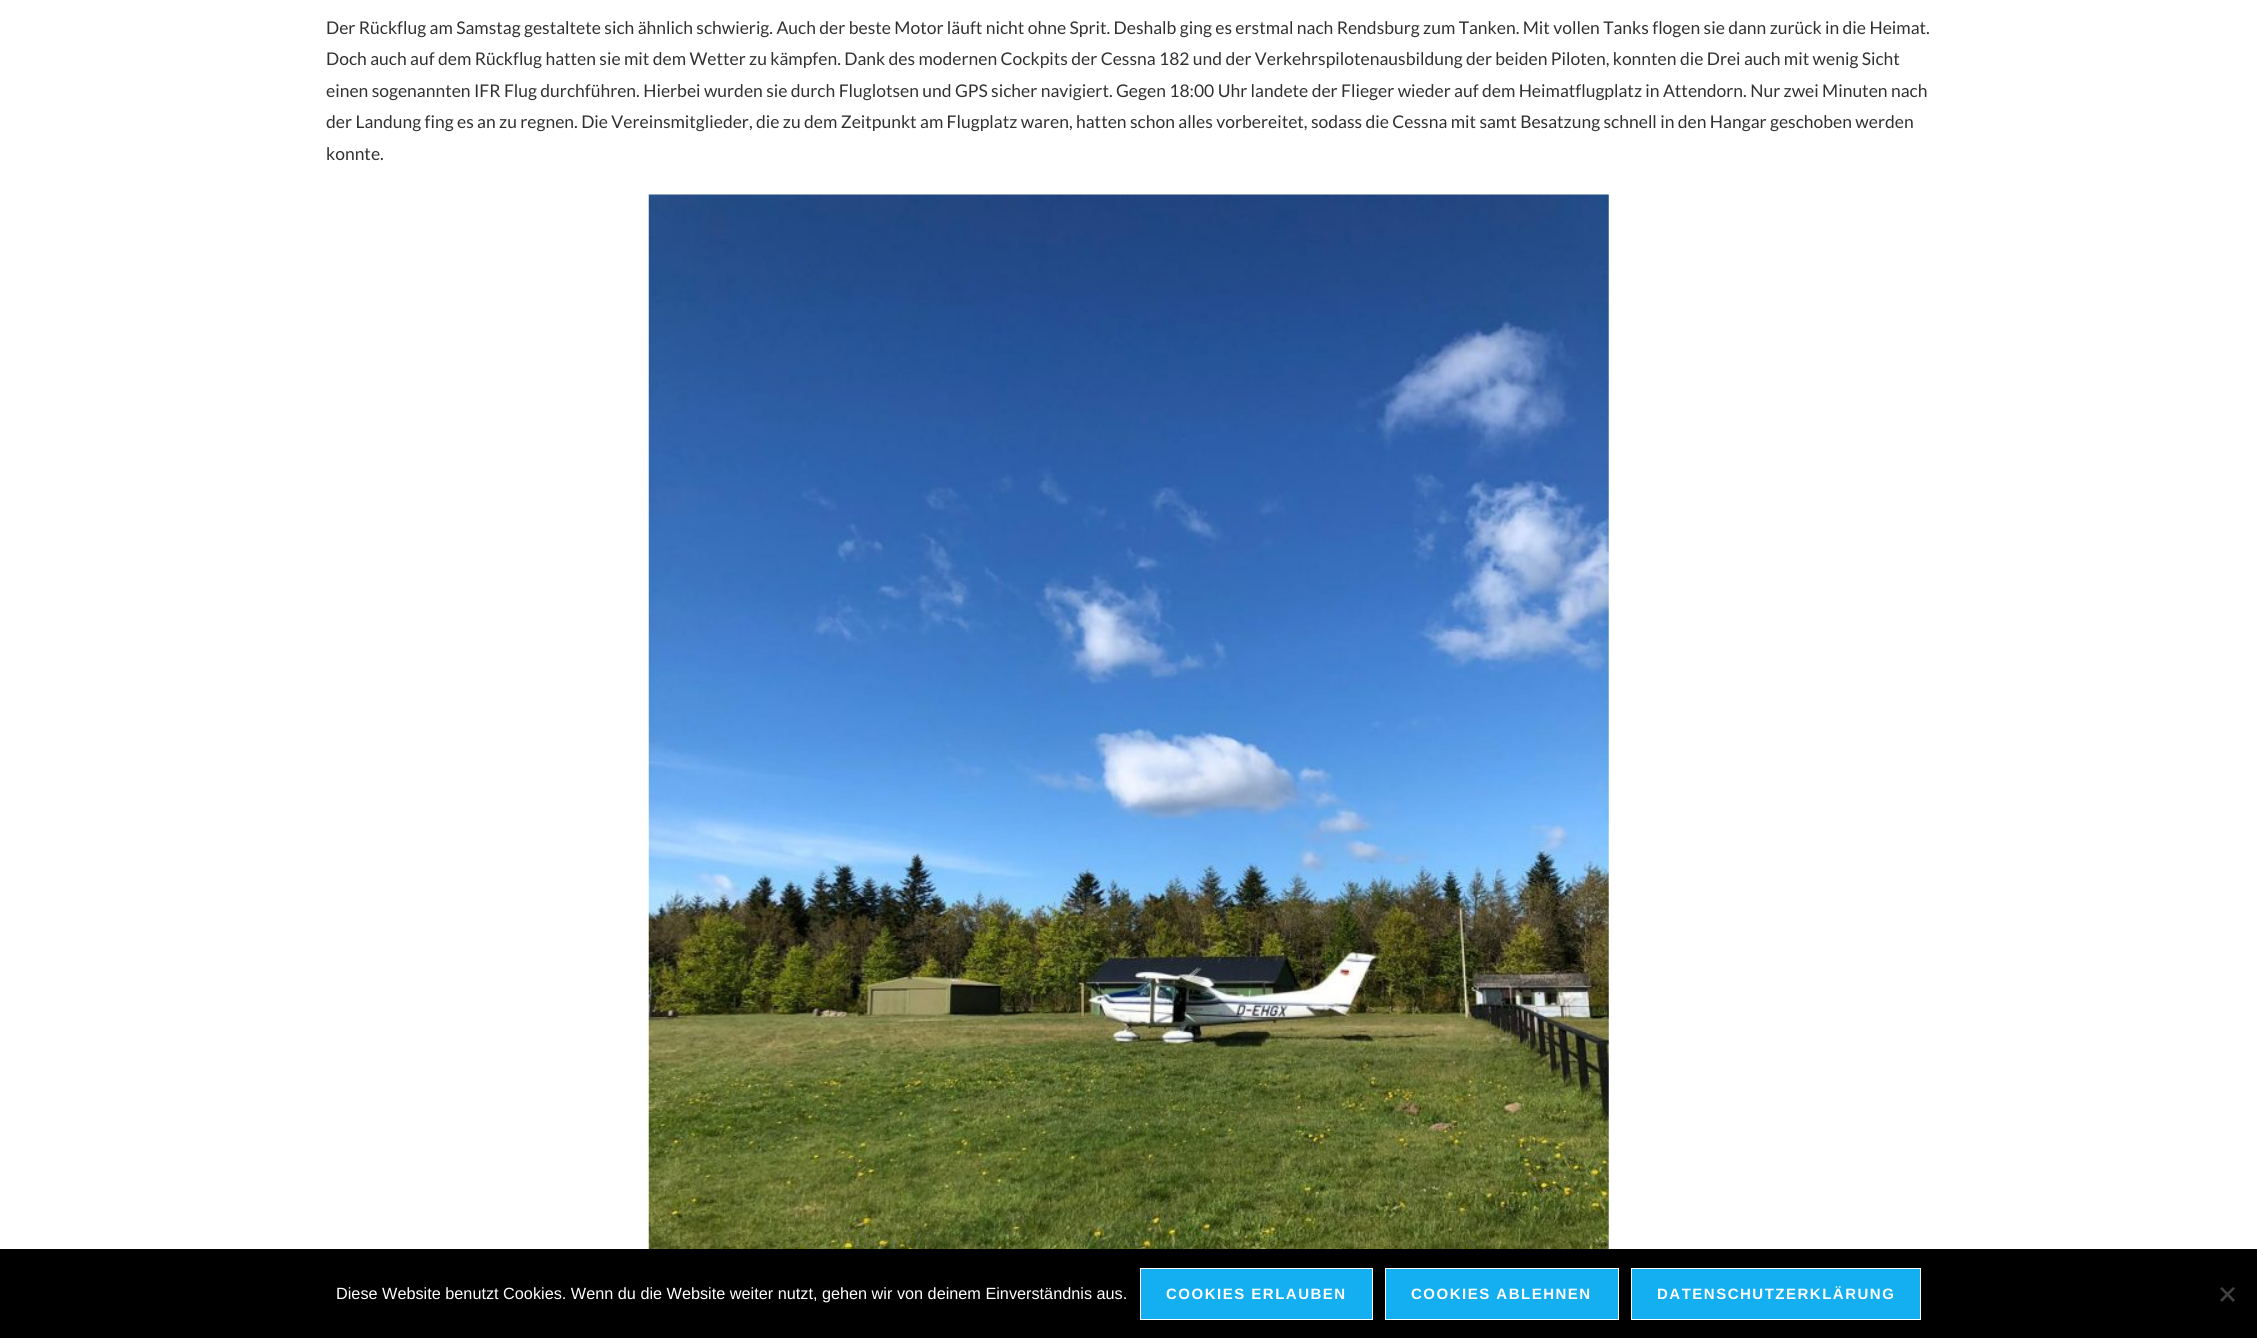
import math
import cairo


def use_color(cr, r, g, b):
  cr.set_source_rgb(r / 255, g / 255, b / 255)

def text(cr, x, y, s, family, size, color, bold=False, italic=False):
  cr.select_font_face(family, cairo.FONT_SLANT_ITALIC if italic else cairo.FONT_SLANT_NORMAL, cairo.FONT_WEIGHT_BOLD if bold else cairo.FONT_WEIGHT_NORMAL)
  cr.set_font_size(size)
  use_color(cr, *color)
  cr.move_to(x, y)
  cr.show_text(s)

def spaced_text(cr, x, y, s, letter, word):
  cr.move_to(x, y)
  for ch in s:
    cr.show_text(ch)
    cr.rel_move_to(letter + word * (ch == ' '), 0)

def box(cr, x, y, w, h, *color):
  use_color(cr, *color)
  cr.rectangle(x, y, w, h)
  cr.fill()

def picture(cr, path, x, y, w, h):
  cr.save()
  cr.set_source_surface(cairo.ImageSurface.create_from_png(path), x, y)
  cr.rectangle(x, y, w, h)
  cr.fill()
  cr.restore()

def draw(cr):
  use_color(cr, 255, 255, 255)
  cr.paint()
  picture(cr, "img_01.png", 648, 194, 961, 1055)
  box(cr, 0, 1249, 2257, 89, 0, 0, 0)
  use_color(cr, 19, 175, 240)
  cr.rectangle(1140.5, 1268.5, 232, 51)
  cr.fill_preserve()
  use_color(cr, 255, 255, 255)
  cr.set_line_width(1)
  cr.stroke()
  use_color(cr, 19, 175, 240)
  cr.rectangle(1385.5, 1268.5, 233, 51)
  cr.fill_preserve()
  use_color(cr, 255, 255, 255)
  cr.stroke()
  use_color(cr, 19, 175, 240)
  cr.rectangle(1631.5, 1268.5, 289, 51)
  cr.fill_preserve()
  use_color(cr, 255, 255, 255)
  cr.stroke()
  use_color(cr, 64, 64, 64)
  cr.new_path()
  cr.move_to(2233, 1287)
  cr.line_to(2235, 1288.5)
  cr.line_to(2222, 1302)
  cr.line_to(2220, 1300)
  cr.close_path()
  cr.fill()
  cr.new_path()
  cr.move_to(2220, 1288.5)
  cr.line_to(2222, 1287)
  cr.line_to(2235, 1300)
  cr.line_to(2233, 1302)
  cr.close_path()
  cr.fill()
  text(cr, 326, 34, "Der Rückflug am Samstag gestaltete sich ähnlich schwierig. Auch der beste Motor läuft nicht ohne Sprit. Deshalb ging es erstmal nach Rendsburg zum Tanken. Mit vollen Tanks flogen sie dann zurück in die Heimat.", "Lato", 17.5, (49, 49, 49))
  text(cr, 326, 65, "Doch auch auf dem Rückflug hatten sie mit dem Wetter zu kämpfen. Dank des modernen Cockpits der Cessna 182 und der Verkehrspilotenausbildung der beiden Piloten, konnten die Drei auch mit wenig Sicht", "Lato", 17.5, (49, 49, 49))
  text(cr, 326, 97, "einen sogenannten IFR Flug durchführen. Hierbei wurden sie durch Fluglotsen und GPS sicher navigiert. Gegen 18:00 Uhr landete der Flieger wieder auf dem Heimatflugplatz in Attendorn. Nur zwei Minuten nach", "Lato", 17.5, (49, 49, 49))
  text(cr, 326, 128, "der Landung fing es an zu regnen. Die Vereinsmitglieder, die zu dem Zeitpunkt am Flugplatz waren, hatten schon alles vorbereitet, sodass die Cessna mit samt Besatzung schnell in den Hangar geschoben werden", "Lato", 17.5, (49, 49, 49))
  text(cr, 326, 160, "konnte.", "Lato", 17.5, (49, 49, 49))
  text(cr, 336, 1299, "Diese Website benutzt Cookies. Wenn du die Website weiter nutzt, gehen wir von deinem Einverständnis aus.", "Liberation Sans", 16.25, (255, 255, 255))
  cr.select_font_face("Liberation Sans", cairo.FONT_SLANT_NORMAL, cairo.FONT_WEIGHT_BOLD)
  cr.set_font_size(15)
  spaced_text(cr, 1166, 1299, "COOKIES ERLAUBEN", 1.5, 0)
  spaced_text(cr, 1411, 1299, "COOKIES ABLEHNEN", 1.5, 0)
  spaced_text(cr, 1657, 1299, "DATENSCHUTZERKLÄRUNG", 1.5, 0)


surface = cairo.ImageSurface(cairo.FORMAT_RGB24, 2257, 1338)
cr = cairo.Context(surface)
options = cairo.FontOptions()
options.set_hint_metrics(cairo.HINT_METRICS_OFF)
options.set_hint_style(cairo.HINT_STYLE_NONE)
cr.set_font_options(options)
cr.set_miter_limit(4)
draw(cr)
surface.write_to_png("out.png")
